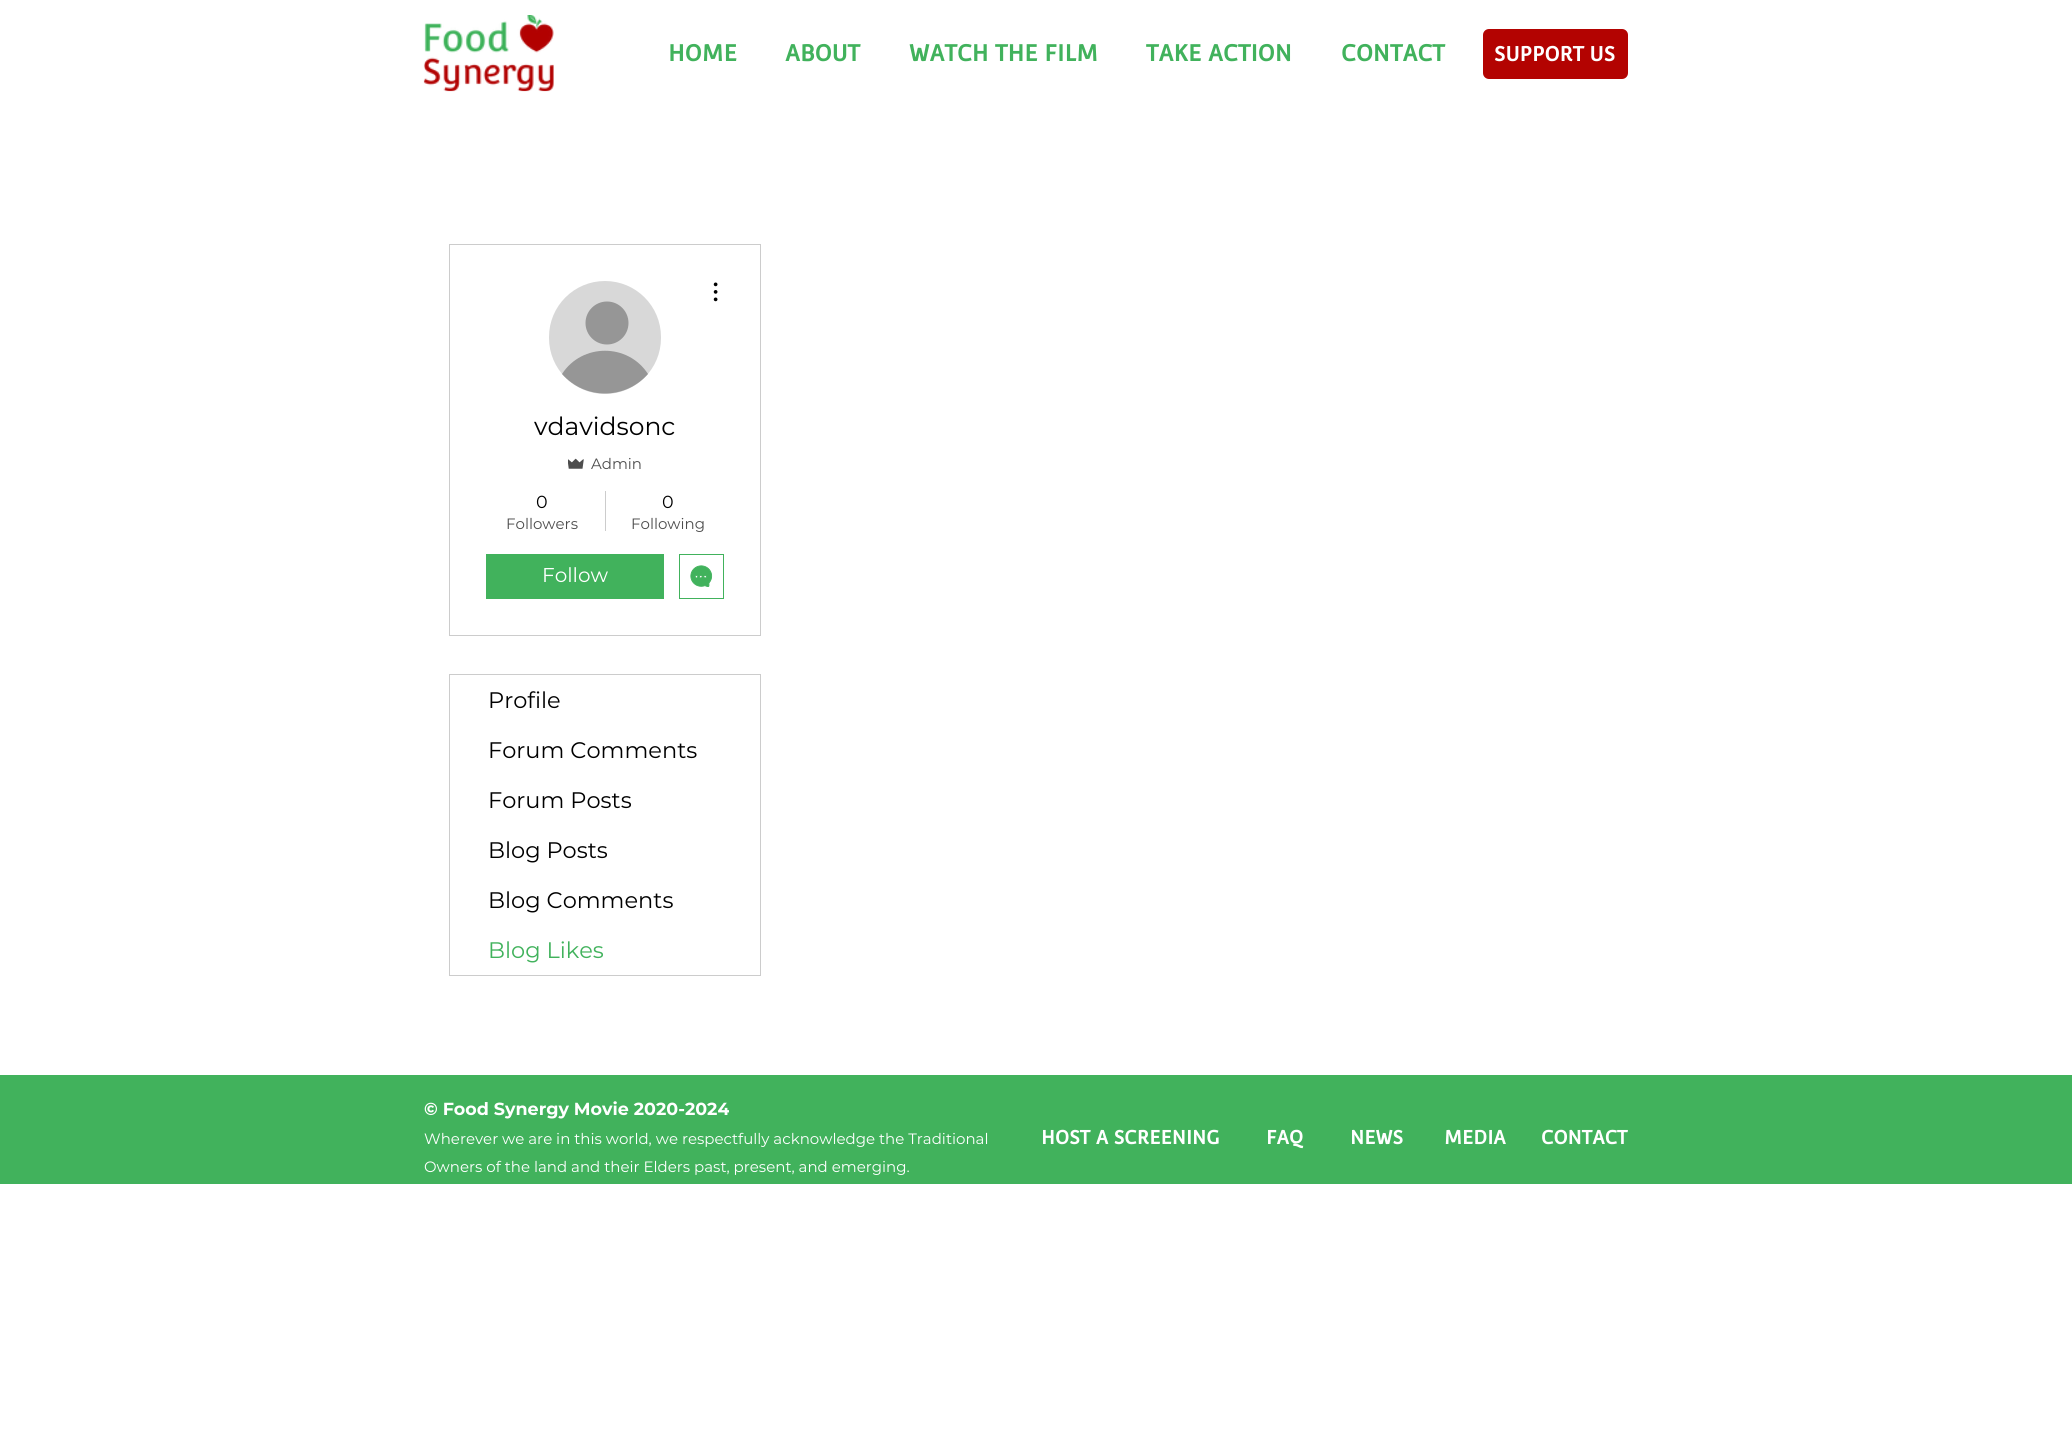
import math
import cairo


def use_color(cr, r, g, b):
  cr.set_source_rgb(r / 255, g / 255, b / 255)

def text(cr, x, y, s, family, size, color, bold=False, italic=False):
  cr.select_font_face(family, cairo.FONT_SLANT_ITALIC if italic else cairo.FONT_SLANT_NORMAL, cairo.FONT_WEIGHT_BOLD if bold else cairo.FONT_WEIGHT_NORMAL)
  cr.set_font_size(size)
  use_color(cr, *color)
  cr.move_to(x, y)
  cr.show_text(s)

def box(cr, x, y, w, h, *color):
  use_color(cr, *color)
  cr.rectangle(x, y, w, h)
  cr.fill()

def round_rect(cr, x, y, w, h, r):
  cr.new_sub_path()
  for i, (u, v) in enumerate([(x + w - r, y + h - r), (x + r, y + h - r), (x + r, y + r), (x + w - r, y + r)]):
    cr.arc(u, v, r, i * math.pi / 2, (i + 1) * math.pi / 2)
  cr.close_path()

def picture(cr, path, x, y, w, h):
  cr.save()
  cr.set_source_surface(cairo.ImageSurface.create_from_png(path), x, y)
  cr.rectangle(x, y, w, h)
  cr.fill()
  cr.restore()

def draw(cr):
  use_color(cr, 255, 255, 255)
  cr.paint()
  picture(cr, "img_01.png", 423, 15, 131, 77)
  use_color(cr, 179, 3, 1)
  round_rect(cr, 1483, 29, 145, 50, 6)
  cr.fill()
  cr.rectangle(449.5, 244.5, 311, 391)
  use_color(cr, 204, 204, 204)
  cr.set_line_width(1)
  cr.stroke()
  use_color(cr, 216, 216, 216)
  round_rect(cr, 549, 281, 112, 113, 56)
  cr.fill()
  use_color(cr, 150, 150, 150)
  cr.arc(607, 323, 21.5, 0, 2 * math.pi)
  cr.fill()
  cr.new_path()
  cr.move_to(648, 374)
  cr.curve_to(625, 400, 585, 400, 562, 374)
  cr.curve_to(582, 343, 628, 343, 648, 374)
  cr.close_path()
  cr.fill()
  picture(cr, "img_02.png", 713, 282, 5, 20)
  picture(cr, "img_03.png", 568, 458, 16, 11)
  box(cr, 605, 491, 1, 40, 204, 204, 204)
  box(cr, 486, 554, 178, 45, 65, 178, 92)
  cr.rectangle(679.5, 554.5, 44, 44)
  cr.stroke()
  picture(cr, "img_04.png", 690, 565, 23, 22)
  cr.rectangle(449.5, 674.5, 311, 301)
  use_color(cr, 204, 204, 204)
  cr.stroke()
  box(cr, 0, 1075, 2072, 109, 65, 178, 92)
  text(cr, 668, 61, "HOME", "Convergence", 22.5, (65, 178, 92), bold=True)
  text(cr, 785, 61, "ABOUT", "Convergence", 22.5, (65, 178, 92), bold=True)
  text(cr, 909, 61, "WATCH THE FILM", "Convergence", 22.5, (65, 178, 92), bold=True)
  text(cr, 1146, 61, "TAKE ACTION", "Convergence", 22.5, (65, 178, 92), bold=True)
  text(cr, 1341, 61, "CONTACT", "Convergence", 22.5, (65, 178, 92), bold=True)
  text(cr, 1494, 61, "SUPPORT US", "Convergence", 20, (255, 255, 255), bold=True)
  text(cr, 534, 435, "vdavidsonc", "Montserrat", 25, (0, 0, 0))
  text(cr, 591, 469, "Admin", "Montserrat", 15, (77, 77, 77))
  text(cr, 536, 508, "0", "Montserrat", 17.5, (0, 0, 0))
  text(cr, 506, 529, "Followers", "Montserrat", 15, (77, 77, 77))
  text(cr, 662, 508, "0", "Montserrat", 17.5, (0, 0, 0))
  text(cr, 631, 529, "Following", "Montserrat", 15, (77, 77, 77))
  text(cr, 542, 582, "Follow", "Montserrat", 20, (255, 255, 255))
  text(cr, 488, 708, "Profile", "Montserrat", 22.5, (0, 0, 0))
  text(cr, 488, 758, "Forum Comments", "Montserrat", 22.5, (0, 0, 0))
  text(cr, 488, 808, "Forum Posts", "Montserrat", 22.5, (0, 0, 0))
  text(cr, 488, 858, "Blog Posts", "Montserrat", 22.5, (0, 0, 0))
  text(cr, 488, 908, "Blog Comments", "Montserrat", 22.5, (0, 0, 0))
  text(cr, 488, 958, "Blog Likes", "Montserrat", 22.5, (65, 178, 92))
  text(cr, 424, 1115, "© Food Synergy Movie 2020-2024", "Montserrat", 17.5, (255, 255, 255), bold=True)
  text(cr, 424, 1144, "Wherever we are in this world, we respectfully acknowledge the Traditional", "Montserrat", 15, (255, 255, 255))
  text(cr, 424, 1172, "Owners of the land and their Elders past, present, and emerging.", "Montserrat", 15, (255, 255, 255))
  text(cr, 1041, 1144, "HOST A SCREENING", "Convergence", 18.75, (255, 255, 255), bold=True)
  text(cr, 1266, 1144, "FAQ", "Convergence", 18.75, (255, 255, 255), bold=True)
  text(cr, 1350, 1144, "NEWS", "Convergence", 18.75, (255, 255, 255), bold=True)
  text(cr, 1444, 1144, "MEDIA", "Convergence", 18.75, (255, 255, 255), bold=True)
  text(cr, 1541, 1144, "CONTACT", "Convergence", 18.75, (255, 255, 255), bold=True)


surface = cairo.ImageSurface(cairo.FORMAT_RGB24, 2072, 1454)
cr = cairo.Context(surface)
options = cairo.FontOptions()
options.set_hint_metrics(cairo.HINT_METRICS_OFF)
options.set_hint_style(cairo.HINT_STYLE_NONE)
cr.set_font_options(options)
cr.set_miter_limit(4)
draw(cr)
surface.write_to_png("out.png")
